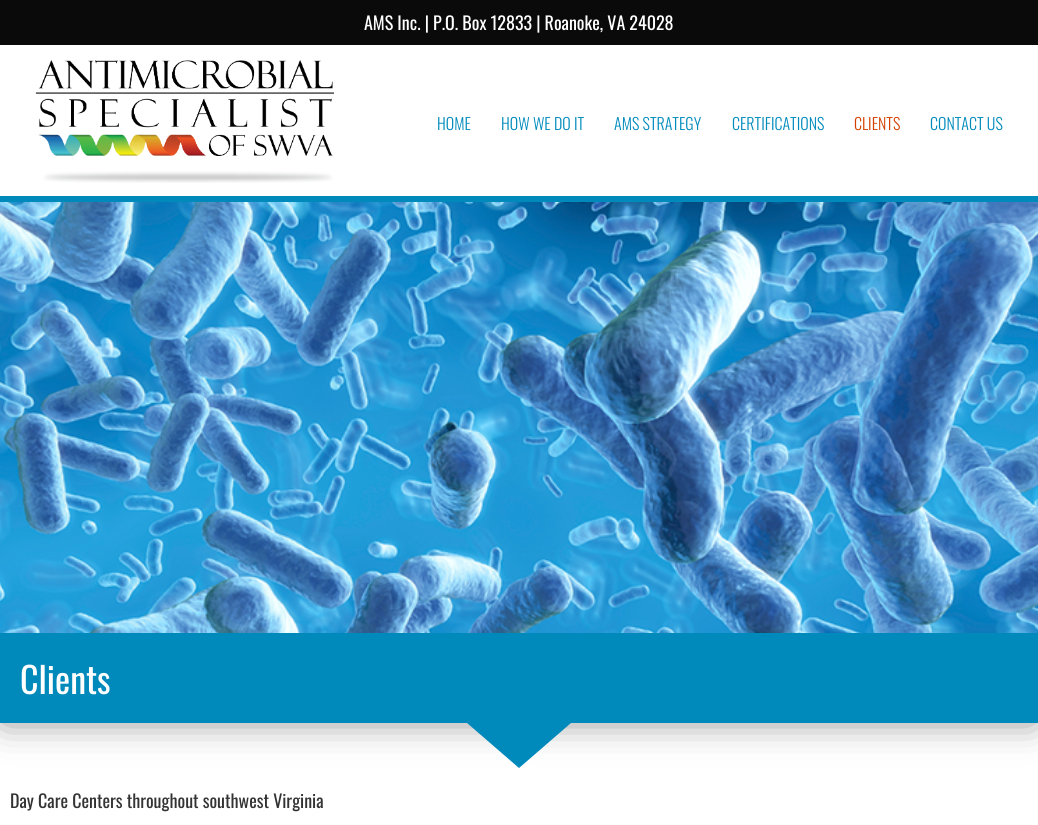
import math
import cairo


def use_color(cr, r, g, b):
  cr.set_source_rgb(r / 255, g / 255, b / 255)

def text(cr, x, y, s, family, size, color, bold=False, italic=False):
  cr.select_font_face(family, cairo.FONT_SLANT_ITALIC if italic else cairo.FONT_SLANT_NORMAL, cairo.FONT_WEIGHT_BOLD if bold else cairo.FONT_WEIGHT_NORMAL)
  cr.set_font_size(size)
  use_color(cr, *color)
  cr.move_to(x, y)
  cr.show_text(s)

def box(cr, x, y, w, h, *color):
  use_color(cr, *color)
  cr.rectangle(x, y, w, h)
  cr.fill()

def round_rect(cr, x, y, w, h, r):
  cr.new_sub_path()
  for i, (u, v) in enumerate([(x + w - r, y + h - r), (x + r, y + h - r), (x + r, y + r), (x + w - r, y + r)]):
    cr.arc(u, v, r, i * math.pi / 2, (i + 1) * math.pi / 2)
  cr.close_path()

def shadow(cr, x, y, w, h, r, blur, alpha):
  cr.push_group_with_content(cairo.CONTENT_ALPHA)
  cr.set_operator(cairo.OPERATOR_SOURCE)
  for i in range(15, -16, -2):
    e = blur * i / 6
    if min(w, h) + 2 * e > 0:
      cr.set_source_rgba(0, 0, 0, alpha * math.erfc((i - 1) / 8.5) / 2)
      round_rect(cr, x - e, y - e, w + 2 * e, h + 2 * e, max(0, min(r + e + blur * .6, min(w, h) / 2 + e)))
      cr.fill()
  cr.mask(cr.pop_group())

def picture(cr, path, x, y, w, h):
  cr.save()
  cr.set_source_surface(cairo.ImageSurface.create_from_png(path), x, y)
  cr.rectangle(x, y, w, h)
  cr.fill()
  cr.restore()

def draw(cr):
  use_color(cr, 255, 255, 255)
  cr.paint()
  box(cr, 0, 0, 1038, 45, 10, 10, 10)
  box(cr, 0, 196, 1038, 6, 0, 138, 188)
  picture(cr, "img_01.png", 35, 60, 299, 123)
  use_color(cr, 0, 0, 0)
  shadow(cr, 4, 687, 1030, 32, 0, 19, 0.5)
  picture(cr, "img_02.png", 0, 202, 1038, 431)
  box(cr, 0, 633, 1038, 90, 0, 138, 188)
  cr.new_path()
  cr.move_to(937, 723)
  cr.line_to(571, 723)
  cr.line_to(519, 768)
  cr.line_to(467, 723)
  cr.line_to(101, 723)
  cr.close_path()
  cr.fill()
  text(cr, 364, 30, "AMS Inc. | P.O. Box 12833 | Roanoke, VA 24028", "Oswald", 18, (255, 255, 255))
  text(cr, 437, 130, "HOME", "Oswald Light", 16, (0, 138, 188))
  text(cr, 501, 130, "HOW WE DO IT", "Oswald Light", 16, (0, 138, 188))
  text(cr, 614, 130, "AMS STRATEGY", "Oswald Light", 16, (0, 138, 188))
  text(cr, 732, 130, "CERTIFICATIONS", "Oswald Light", 16, (0, 138, 188))
  text(cr, 854, 130, "CLIENTS", "Oswald Light", 16, (211, 63, 0))
  text(cr, 930, 130, "CONTACT US", "Oswald Light", 16, (0, 138, 188))
  text(cr, 20, 694, "Clients", "Oswald", 36, (255, 255, 255))
  text(cr, 10, 808, "Day Care Centers throughout southwest Virginia", "Oswald", 18, (51, 51, 51))


surface = cairo.ImageSurface(cairo.FORMAT_RGB24, 1038, 825)
cr = cairo.Context(surface)
options = cairo.FontOptions()
options.set_hint_metrics(cairo.HINT_METRICS_OFF)
options.set_hint_style(cairo.HINT_STYLE_NONE)
cr.set_font_options(options)
cr.set_miter_limit(4)
draw(cr)
surface.write_to_png("out.png")
